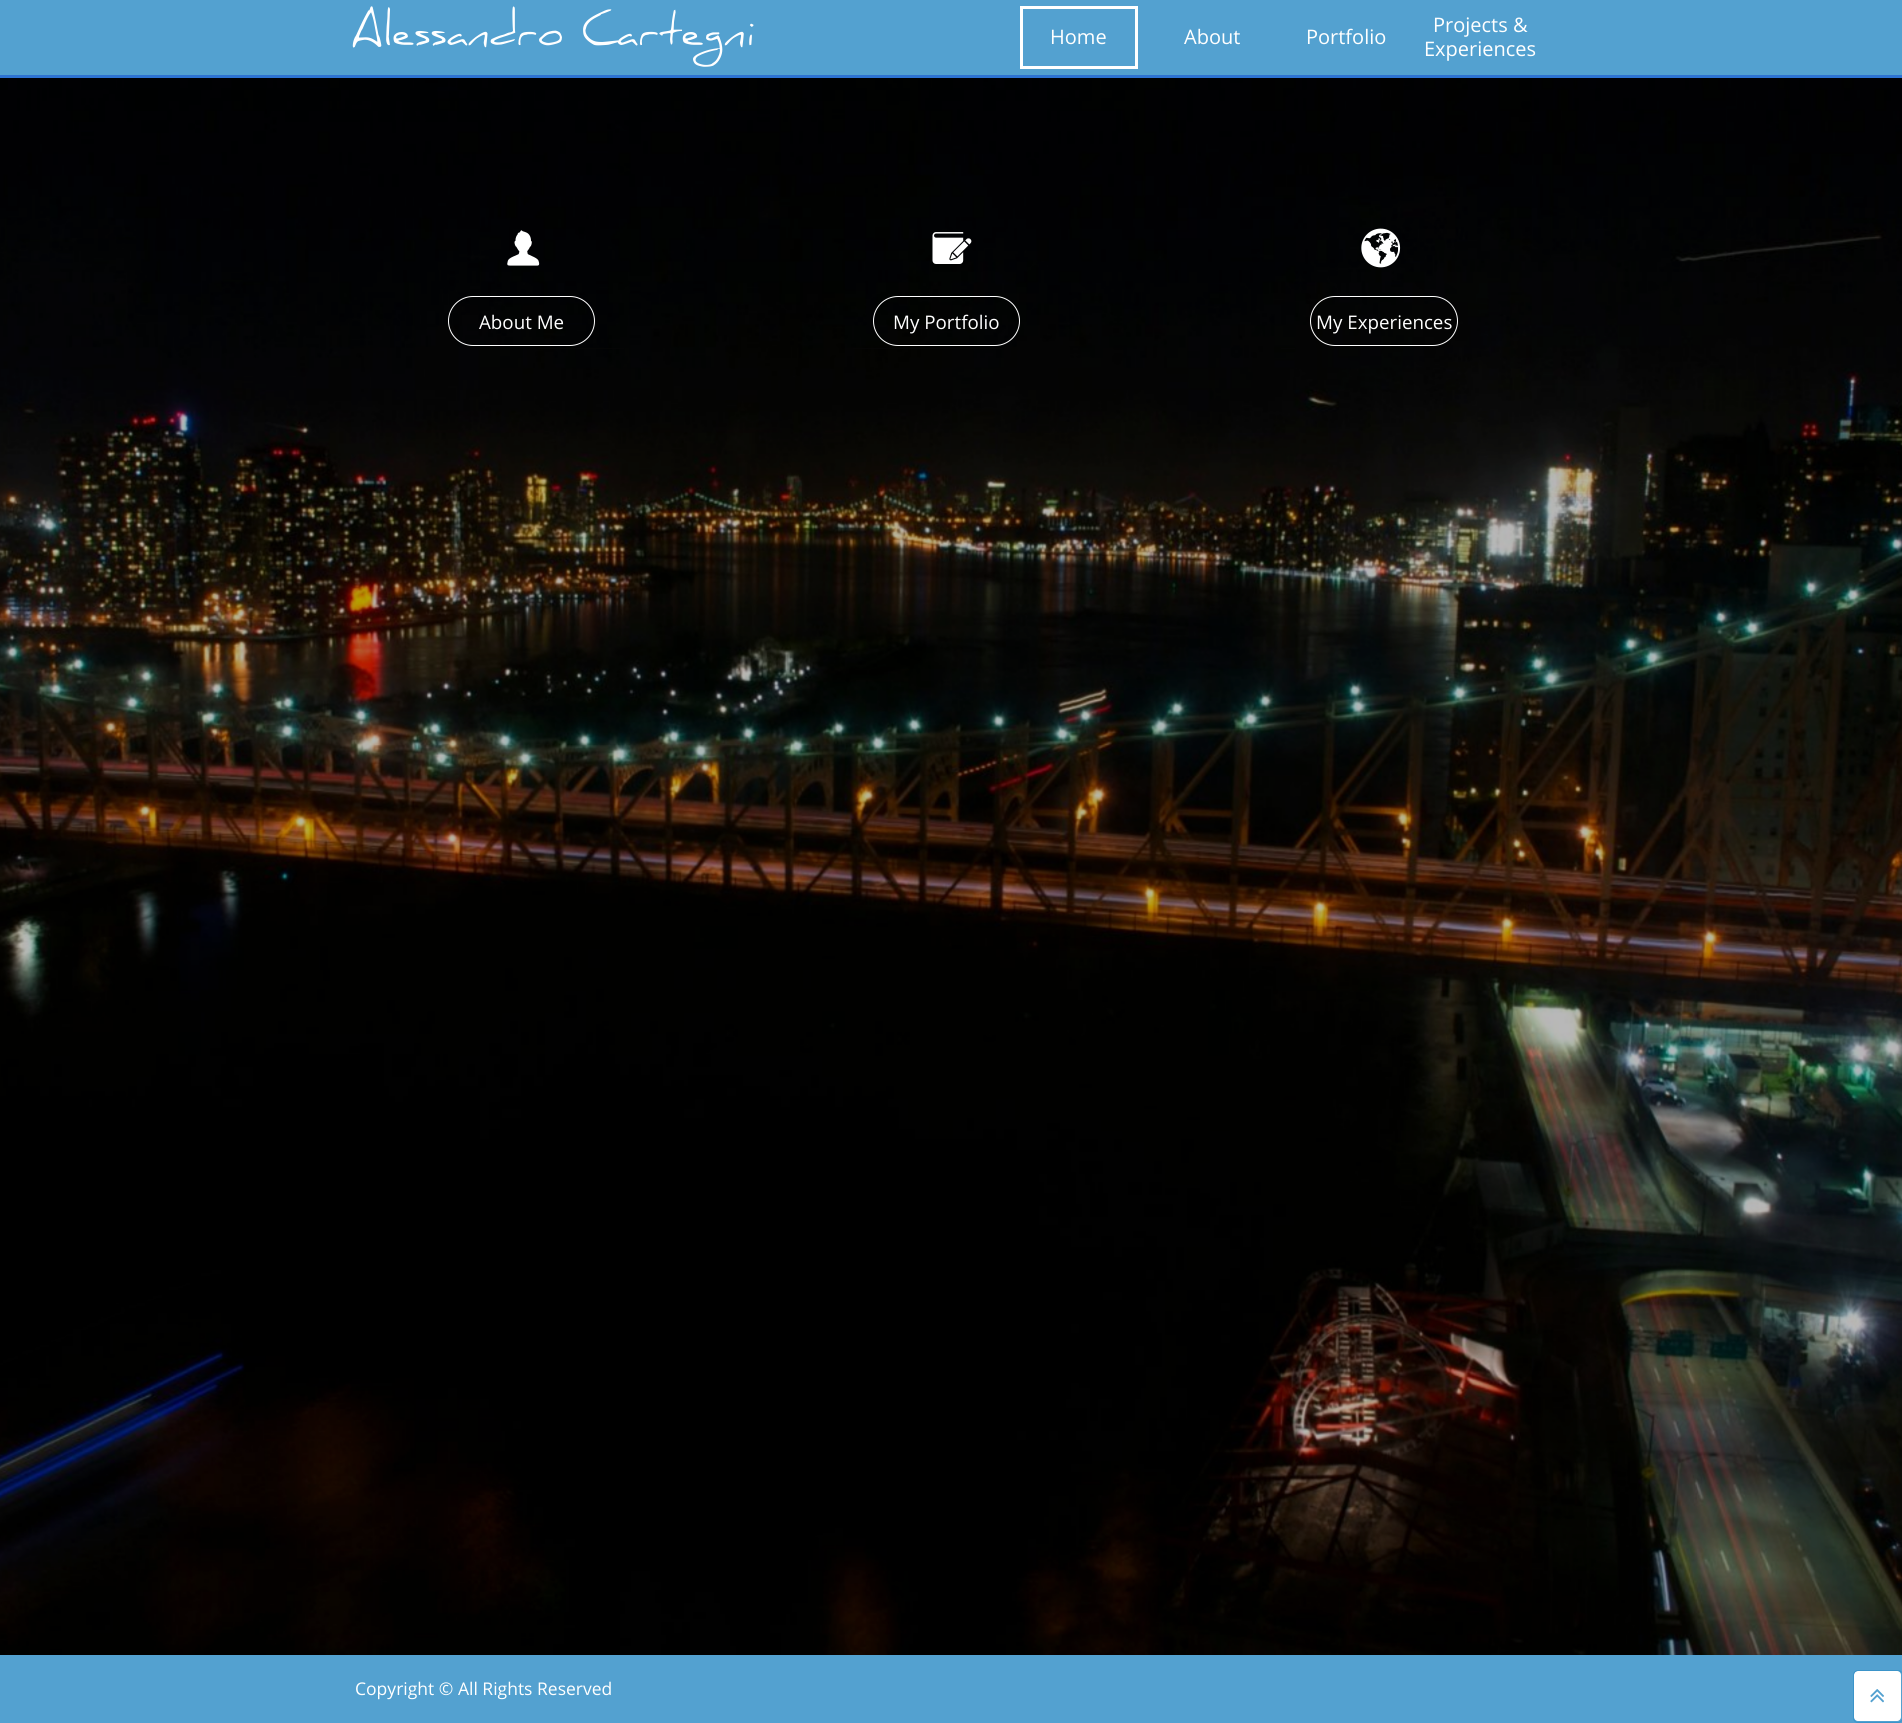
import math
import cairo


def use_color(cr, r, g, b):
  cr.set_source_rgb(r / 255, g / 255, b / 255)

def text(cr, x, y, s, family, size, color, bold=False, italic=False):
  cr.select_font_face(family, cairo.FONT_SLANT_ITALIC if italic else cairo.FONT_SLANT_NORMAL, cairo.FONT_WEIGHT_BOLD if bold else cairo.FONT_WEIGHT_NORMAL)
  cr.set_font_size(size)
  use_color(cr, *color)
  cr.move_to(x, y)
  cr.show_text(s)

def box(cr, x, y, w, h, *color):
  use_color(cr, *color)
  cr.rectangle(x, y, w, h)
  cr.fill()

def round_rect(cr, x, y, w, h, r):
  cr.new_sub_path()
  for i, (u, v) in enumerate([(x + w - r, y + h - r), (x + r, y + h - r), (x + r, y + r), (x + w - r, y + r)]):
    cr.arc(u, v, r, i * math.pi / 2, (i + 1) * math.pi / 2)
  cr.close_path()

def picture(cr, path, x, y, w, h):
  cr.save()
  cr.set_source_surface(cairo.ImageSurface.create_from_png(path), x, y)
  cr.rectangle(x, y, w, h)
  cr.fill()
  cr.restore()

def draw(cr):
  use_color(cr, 83, 161, 208)
  cr.paint()
  box(cr, 0, 75, 1902, 3, 45, 115, 210)
  cr.rectangle(1021.5, 7.5, 115, 60)
  use_color(cr, 255, 255, 255)
  cr.set_line_width(3)
  cr.stroke()
  picture(cr, "img_01.png", 0, 78, 1902, 1577)
  picture(cr, "img_02.png", 507, 230, 33, 36)
  box(cr, 538, 348, 86, 1, 5, 5, 5)
  picture(cr, "img_03.png", 932, 232, 40, 32)
  box(cr, 853, 348, 149, 1, 5, 5, 5)
  picture(cr, "img_04.png", 1361, 228, 40, 40)
  box(cr, 1281, 348, 14, 1, 5, 5, 5)
  round_rect(cr, 448.5, 296.5, 146, 49, 24.5)
  use_color(cr, 255, 255, 255)
  cr.set_line_width(1)
  cr.stroke()
  round_rect(cr, 873.5, 296.5, 146, 49, 24.5)
  cr.stroke()
  round_rect(cr, 1310.5, 296.5, 147, 49, 24.5)
  cr.stroke()
  round_rect(cr, 1854, 1671, 47, 50, 4)
  cr.fill()
  round_rect(cr, 1853.5, 1670.5, 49, 52, 4.5)
  use_color(cr, 59, 148, 201)
  cr.stroke()
  picture(cr, "img_05.png", 1870, 1689, 14, 14)
  text(cr, 351, 45, "Alessandro Cartegni", "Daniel", 42.5, (255, 255, 255))
  text(cr, 1050, 44, "Home", "Open Sans", 20, (255, 255, 255))
  text(cr, 1184, 44, "About", "Open Sans", 20, (255, 255, 255))
  text(cr, 1306, 44, "Portfolio", "Open Sans", 20, (255, 255, 255))
  text(cr, 1433, 32, "Projects &", "Open Sans", 20, (255, 255, 255))
  text(cr, 1424, 56, "Experiences", "Open Sans", 20, (255, 255, 255))
  text(cr, 479, 329, "About Me", "Open Sans", 18.75, (255, 255, 255))
  text(cr, 893, 329, "My Portfolio", "Open Sans", 18.75, (255, 255, 255))
  text(cr, 1316, 329, "My Experiences", "Open Sans", 18.75, (255, 255, 255))
  text(cr, 355, 1695, "Copyright © All Rights Reserved", "Open Sans", 17.5, (255, 255, 255))


surface = cairo.ImageSurface(cairo.FORMAT_RGB24, 1902, 1723)
cr = cairo.Context(surface)
options = cairo.FontOptions()
options.set_hint_metrics(cairo.HINT_METRICS_OFF)
options.set_hint_style(cairo.HINT_STYLE_NONE)
cr.set_font_options(options)
cr.set_miter_limit(4)
draw(cr)
surface.write_to_png("out.png")
